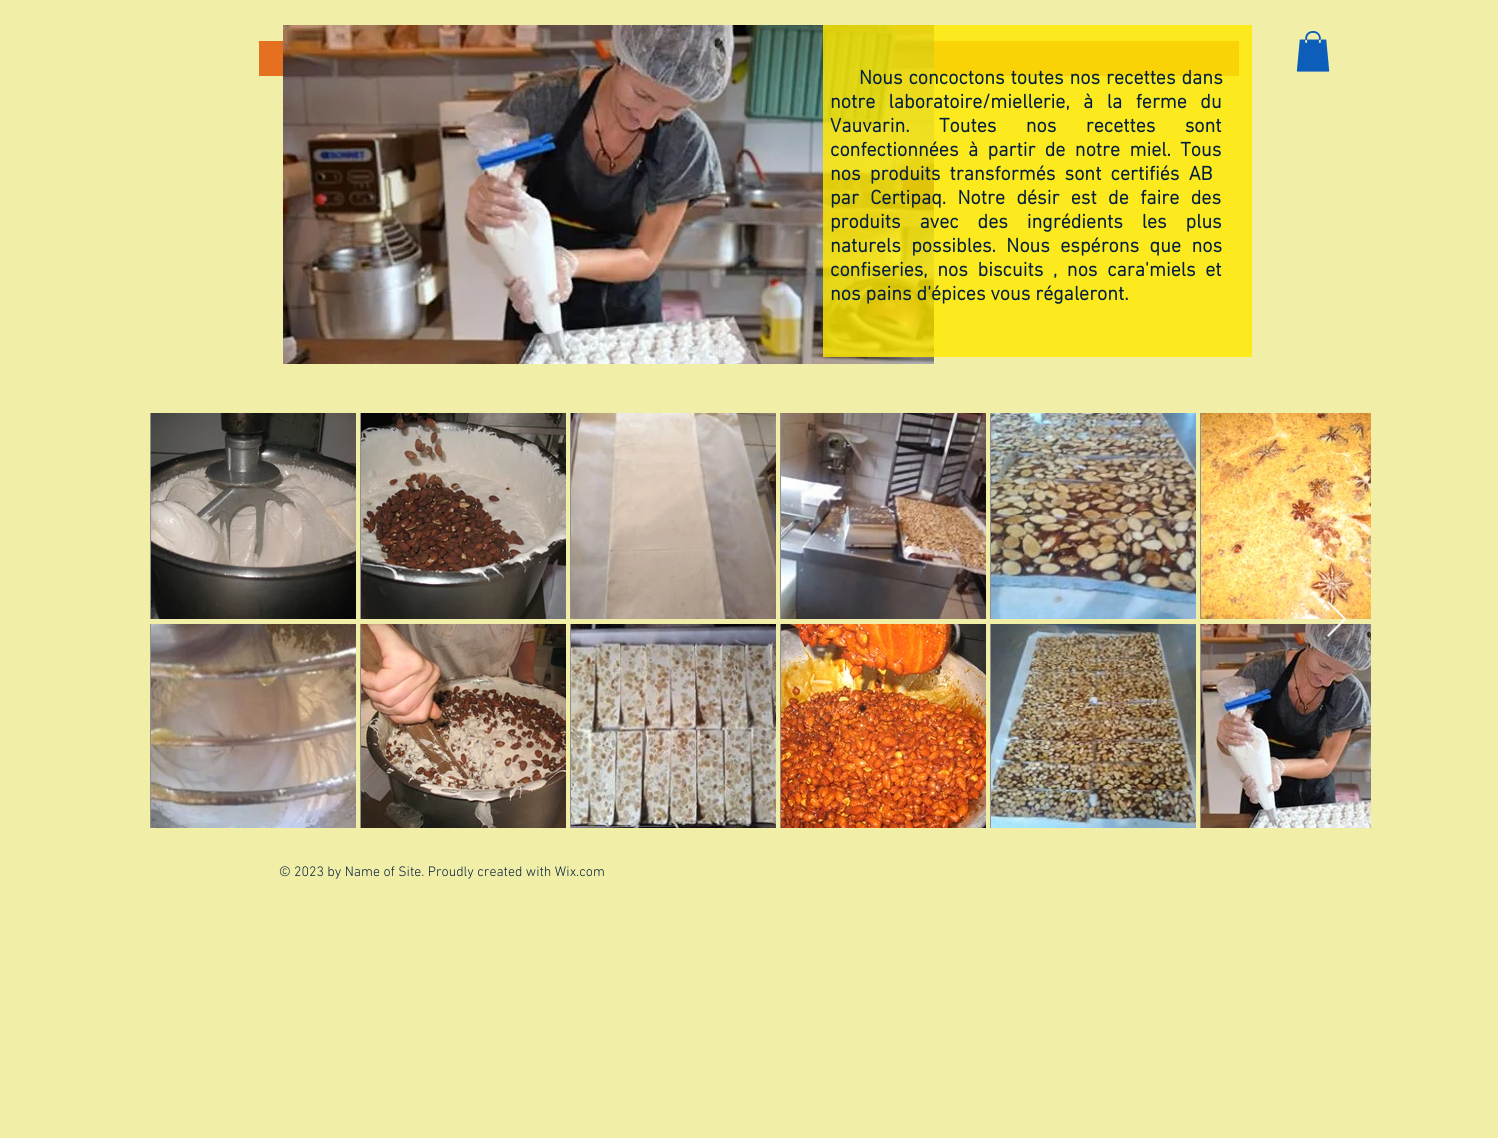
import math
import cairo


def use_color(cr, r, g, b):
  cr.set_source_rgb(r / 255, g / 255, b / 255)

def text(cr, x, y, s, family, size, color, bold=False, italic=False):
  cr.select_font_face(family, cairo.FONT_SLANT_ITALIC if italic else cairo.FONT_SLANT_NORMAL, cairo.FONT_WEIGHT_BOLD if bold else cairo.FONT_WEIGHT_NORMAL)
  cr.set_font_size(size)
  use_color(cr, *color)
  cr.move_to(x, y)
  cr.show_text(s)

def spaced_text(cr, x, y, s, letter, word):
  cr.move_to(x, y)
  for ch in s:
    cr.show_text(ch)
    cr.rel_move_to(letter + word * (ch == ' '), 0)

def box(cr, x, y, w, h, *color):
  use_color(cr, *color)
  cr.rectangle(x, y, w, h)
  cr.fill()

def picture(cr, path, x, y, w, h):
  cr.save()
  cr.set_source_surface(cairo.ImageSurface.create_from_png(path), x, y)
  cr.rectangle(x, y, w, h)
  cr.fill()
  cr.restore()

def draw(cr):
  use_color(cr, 241, 238, 167)
  cr.paint()
  box(cr, 259, 41, 24, 35, 229, 112, 34)
  box(cr, 934, 41, 305, 35, 229, 112, 34)
  picture(cr, "img_01.png", 1296, 31, 34, 41)
  picture(cr, "img_02.png", 283, 25, 651, 339)
  cr.set_source_rgba(1, 0.914, 0, 0.82)
  cr.rectangle(823, 25, 429, 332)
  cr.fill()
  box(cr, 150, 413, 1, 206, 144, 144, 144)
  picture(cr, "img_03.png", 151, 413, 205, 206)
  box(cr, 150, 624, 1, 204, 144, 144, 144)
  picture(cr, "img_04.png", 151, 624, 205, 204)
  box(cr, 360, 413, 1, 206, 144, 144, 144)
  picture(cr, "img_05.png", 361, 413, 205, 206)
  box(cr, 360, 624, 1, 204, 144, 144, 144)
  picture(cr, "img_06.png", 361, 624, 205, 204)
  box(cr, 570, 413, 1, 206, 144, 144, 144)
  picture(cr, "img_07.png", 571, 413, 205, 206)
  box(cr, 570, 624, 1, 204, 144, 144, 144)
  picture(cr, "img_08.png", 571, 624, 205, 204)
  box(cr, 780, 413, 1, 206, 144, 144, 144)
  picture(cr, "img_09.png", 781, 413, 205, 206)
  box(cr, 780, 624, 1, 204, 144, 144, 144)
  picture(cr, "img_10.png", 781, 624, 205, 204)
  box(cr, 990, 413, 1, 206, 144, 144, 144)
  picture(cr, "img_11.png", 991, 413, 205, 206)
  box(cr, 990, 624, 1, 204, 144, 144, 144)
  picture(cr, "img_12.png", 991, 624, 205, 204)
  box(cr, 1200, 413, 1, 206, 144, 144, 144)
  picture(cr, "img_13.png", 1201, 413, 170, 206)
  box(cr, 1200, 624, 1, 204, 144, 144, 144)
  picture(cr, "img_14.png", 1201, 624, 170, 204)
  cr.set_source_rgba(1, 1, 1, 0.9)
  cr.new_path()
  cr.move_to(1327, 602.5)
  cr.line_to(1328.5, 601)
  cr.line_to(1346.5, 619)
  cr.line_to(1328.5, 637)
  cr.line_to(1327, 635.5)
  cr.line_to(1343.5, 619)
  cr.close_path()
  cr.fill()
  cr.select_font_face("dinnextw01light", cairo.FONT_SLANT_NORMAL, cairo.FONT_WEIGHT_BOLD)
  cr.set_font_size(20)
  use_color(cr, 4, 31, 62)
  spaced_text(cr, 859, 84, "Nous concoctons toutes nos recettes dans", 0, 1)
  spaced_text(cr, 830, 108, "notre laboratoire/miellerie, à la ferme du", 0, 8.5)
  spaced_text(cr, 830, 132, "Vauvarin. Toutes nos recettes sont", 0, 24.5)
  spaced_text(cr, 830, 156, "confectionnées à partir de notre miel. Tous", 0, 4.5)
  spaced_text(cr, 830, 180, "nos produits transformés sont certifiés AB", 0, 4.25)
  spaced_text(cr, 830, 204, "par Certipaq. Notre désir est de faire des", 0, 6.5)
  spaced_text(cr, 830, 228, "produits avec des ingrédients les plus", 0, 14)
  spaced_text(cr, 830, 252, "naturels possibles. Nous espérons que nos", 0, 5.5)
  spaced_text(cr, 830, 276, "confiseries, nos biscuits , nos cara'miels et", 0, 4.75)
  text(cr, 830, 300, "nos pains d'épices vous régaleront.", "dinnextw01light", 20, (4, 31, 62), bold=True)
  text(cr, 279, 876, "© 2023 by Name of Site. Proudly created with Wix.com", "dinnextw01light Light", 14, (4, 31, 62))


surface = cairo.ImageSurface(cairo.FORMAT_RGB24, 1498, 1138)
cr = cairo.Context(surface)
options = cairo.FontOptions()
options.set_hint_metrics(cairo.HINT_METRICS_OFF)
options.set_hint_style(cairo.HINT_STYLE_NONE)
cr.set_font_options(options)
cr.set_miter_limit(4)
draw(cr)
surface.write_to_png("out.png")
